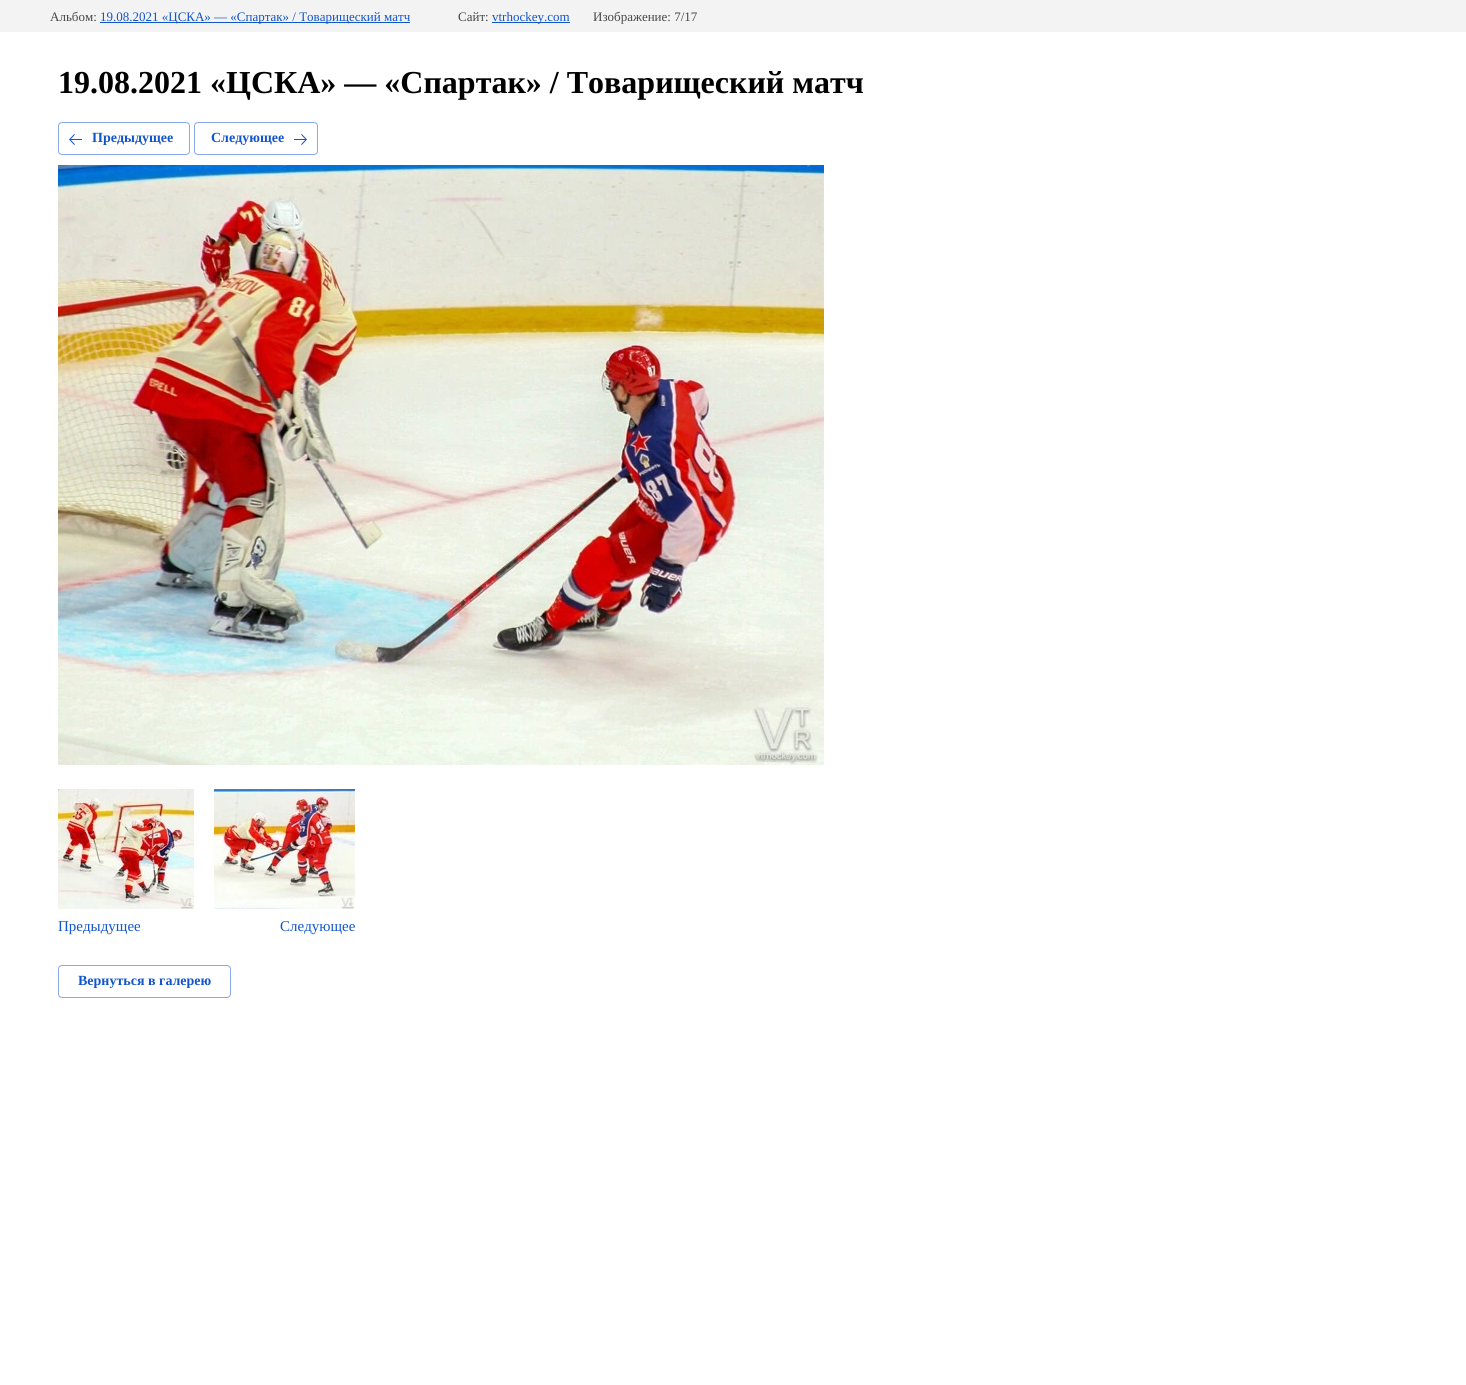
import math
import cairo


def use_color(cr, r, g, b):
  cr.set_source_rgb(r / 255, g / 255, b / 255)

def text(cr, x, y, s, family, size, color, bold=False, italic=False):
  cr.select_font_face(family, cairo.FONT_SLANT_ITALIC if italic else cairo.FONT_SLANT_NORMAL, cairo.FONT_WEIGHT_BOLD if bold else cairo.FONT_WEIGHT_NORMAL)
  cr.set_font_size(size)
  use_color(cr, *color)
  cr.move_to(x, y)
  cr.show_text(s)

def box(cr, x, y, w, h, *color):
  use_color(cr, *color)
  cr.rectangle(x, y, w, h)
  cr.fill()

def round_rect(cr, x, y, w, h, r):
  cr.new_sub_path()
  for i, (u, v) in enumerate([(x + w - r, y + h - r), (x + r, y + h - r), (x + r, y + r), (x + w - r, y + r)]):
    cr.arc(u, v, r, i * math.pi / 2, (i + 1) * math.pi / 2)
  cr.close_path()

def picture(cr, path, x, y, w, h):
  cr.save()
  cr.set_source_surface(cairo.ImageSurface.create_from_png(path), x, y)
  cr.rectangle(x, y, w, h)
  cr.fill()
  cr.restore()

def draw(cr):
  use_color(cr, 255, 255, 255)
  cr.paint()
  box(cr, 0, 0, 1466, 32, 243, 243, 243)
  box(cr, 100, 22, 310, 1, 17, 85, 204)
  box(cr, 492, 22, 78, 1, 17, 85, 204)
  round_rect(cr, 58.5, 122.5, 131, 32, 3.5)
  use_color(cr, 136, 170, 230)
  cr.set_line_width(1)
  cr.stroke()
  picture(cr, "img_01.png", 69, 134, 13, 11)
  round_rect(cr, 194.5, 122.5, 123, 32, 3.5)
  cr.stroke()
  picture(cr, "img_02.png", 294, 134, 13, 11)
  picture(cr, "img_03.png", 58, 165, 766, 600)
  picture(cr, "img_04.png", 58, 789, 136, 120)
  picture(cr, "img_05.png", 214, 789, 141, 120)
  round_rect(cr, 58.5, 965.5, 172, 32, 3.5)
  cr.stroke()
  text(cr, 50, 21, "Альбом:", "Liberation Serif", 13, (72, 72, 72))
  text(cr, 100, 21, "19.08.2021 «ЦСКА» — «Спартак» / Товарищеский матч", "Liberation Serif", 13, (17, 85, 204))
  text(cr, 458, 21, "Сайт:", "Liberation Serif", 13, (72, 72, 72))
  text(cr, 492, 21, "vtrhockey.com", "Liberation Serif", 13, (17, 85, 204))
  text(cr, 593, 21, "Изображение: 7/17", "Liberation Serif", 13, (72, 72, 72))
  text(cr, 58, 93, "19.08.2021 «ЦСКА» — «Спартак» / Товарищеский матч", "Liberation Serif", 32, (0, 0, 0), bold=True)
  text(cr, 92, 142, "Предыдущее", "Liberation Serif", 14, (17, 85, 204), bold=True)
  text(cr, 211, 142, "Следующее", "Liberation Serif", 14, (17, 85, 204), bold=True)
  text(cr, 58, 931, "Предыдущее", "Liberation Serif", 15, (17, 85, 204))
  text(cr, 280, 931, "Следующее", "Liberation Serif", 15, (17, 85, 204))
  text(cr, 78, 985, "Вернуться в галерею", "Liberation Serif", 14, (17, 85, 204), bold=True)


surface = cairo.ImageSurface(cairo.FORMAT_RGB24, 1466, 1385)
cr = cairo.Context(surface)
options = cairo.FontOptions()
options.set_hint_metrics(cairo.HINT_METRICS_OFF)
options.set_hint_style(cairo.HINT_STYLE_NONE)
cr.set_font_options(options)
cr.set_miter_limit(4)
draw(cr)
surface.write_to_png("out.png")
